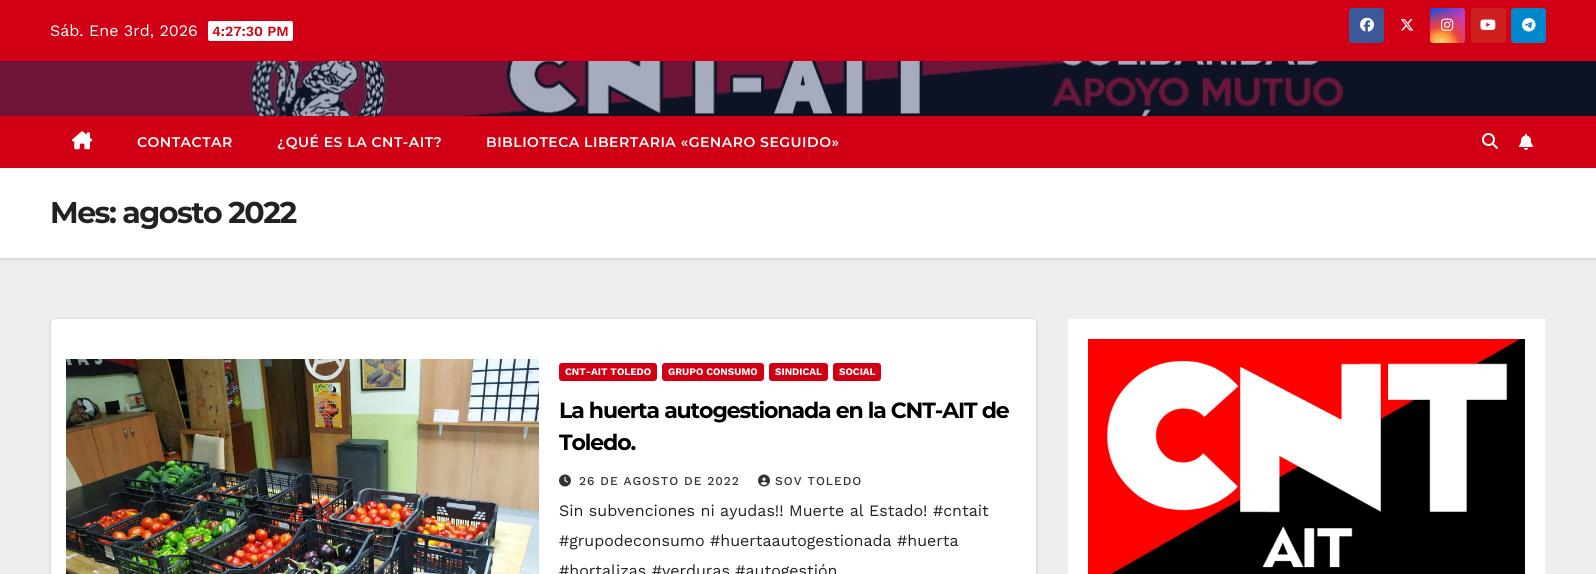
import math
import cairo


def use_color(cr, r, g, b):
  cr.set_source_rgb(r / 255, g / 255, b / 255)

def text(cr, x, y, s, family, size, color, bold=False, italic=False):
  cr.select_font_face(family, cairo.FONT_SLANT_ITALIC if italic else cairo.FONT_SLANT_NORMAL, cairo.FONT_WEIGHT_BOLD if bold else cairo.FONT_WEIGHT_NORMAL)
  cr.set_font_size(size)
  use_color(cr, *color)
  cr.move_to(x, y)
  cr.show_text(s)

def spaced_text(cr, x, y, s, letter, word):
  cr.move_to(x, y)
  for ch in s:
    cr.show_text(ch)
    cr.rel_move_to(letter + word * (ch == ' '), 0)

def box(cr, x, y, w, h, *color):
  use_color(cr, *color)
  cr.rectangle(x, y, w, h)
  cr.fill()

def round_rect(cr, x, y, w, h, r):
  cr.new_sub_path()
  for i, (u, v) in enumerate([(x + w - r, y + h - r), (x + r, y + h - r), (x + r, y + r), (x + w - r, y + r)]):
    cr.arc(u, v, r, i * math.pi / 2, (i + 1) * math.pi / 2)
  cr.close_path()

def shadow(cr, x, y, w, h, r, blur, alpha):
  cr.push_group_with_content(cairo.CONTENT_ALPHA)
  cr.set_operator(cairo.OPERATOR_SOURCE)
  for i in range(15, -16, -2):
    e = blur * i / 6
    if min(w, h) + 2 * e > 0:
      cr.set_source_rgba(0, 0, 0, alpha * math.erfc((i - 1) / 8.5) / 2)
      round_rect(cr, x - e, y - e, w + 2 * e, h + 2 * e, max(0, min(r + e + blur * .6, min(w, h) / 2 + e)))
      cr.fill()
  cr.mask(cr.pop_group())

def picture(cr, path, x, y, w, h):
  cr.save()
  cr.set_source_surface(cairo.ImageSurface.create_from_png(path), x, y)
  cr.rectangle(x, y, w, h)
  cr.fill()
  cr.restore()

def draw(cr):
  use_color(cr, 238, 238, 238)
  cr.paint()
  box(cr, 0, 0, 1596, 61, 209, 0, 20)
  use_color(cr, 255, 255, 255)
  round_rect(cr, 208, 21, 85, 20, 2)
  cr.fill()
  use_color(cr, 59, 89, 152)
  round_rect(cr, 1349, 8, 35, 35, 3)
  cr.fill()
  picture(cr, "img_01.png", 1360, 17, 14, 15)
  picture(cr, "img_02.png", 1400, 19, 14, 12)
  gradient = cairo.LinearGradient(1430, 8, 1465, 43)
  gradient.add_color_stop_rgba(0.12, 0.137, 0.294, 0.843, 1)
  gradient.add_color_stop_rgba(0.58, 0.765, 0.235, 0.745, 1)
  cr.set_source(gradient)
  round_rect(cr, 1430, 8, 35, 35, 3)
  cr.fill()
  gradient = cairo.RadialGradient(1441, 45, 0, 1441, 45, 44)
  gradient.add_color_stop_rgba(0, 1, 0.882, 0.49, 1)
  gradient.add_color_stop_rgba(0.1, 1, 0.804, 0.412, 1)
  gradient.add_color_stop_rgba(0.28, 0.98, 0.569, 0.216, 1)
  gradient.add_color_stop_rgba(0.42, 0.922, 0.255, 0.255, 1)
  gradient.add_color_stop_rgba(0.82, 0.922, 0.255, 0.255, 0)
  cr.set_source(gradient)
  round_rect(cr, 1430, 8, 35, 35, 3)
  cr.fill()
  picture(cr, "img_03.png", 1441, 18, 13, 13)
  use_color(cr, 205, 32, 31)
  round_rect(cr, 1471, 8, 35, 35, 3)
  cr.fill()
  picture(cr, "img_04.png", 1480, 19, 16, 11)
  use_color(cr, 0, 136, 204)
  round_rect(cr, 1511, 8, 35, 35, 3)
  cr.fill()
  picture(cr, "img_05.png", 1522, 18, 14, 14)
  picture(cr, "img_06.png", 0, 61, 1596, 55)
  use_color(cr, 0, 0, 0)
  shadow(cr, 0, 169, 1596, 90, 0, 1.5, 0.15)
  box(cr, 0, 116, 1596, 52, 209, 0, 20)
  picture(cr, "img_07.png", 72, 131, 21, 19)
  picture(cr, "img_08.png", 1482, 133, 16, 16)
  picture(cr, "img_09.png", 1519, 134, 14, 16)
  box(cr, 0, 168, 1596, 90, 255, 255, 255)
  use_color(cr, 0, 0, 0)
  shadow(cr, 50, 320, 987, 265, 5, 2, 0.08)
  use_color(cr, 255, 255, 255)
  round_rect(cr, 50.5, 318.5, 986, 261, 4.5)
  cr.fill_preserve()
  use_color(cr, 221, 220, 220)
  cr.set_line_width(1)
  cr.stroke()
  picture(cr, "img_10.png", 66, 359, 473, 215)
  use_color(cr, 209, 0, 20)
  round_rect(cr, 559, 363, 98, 18, 3)
  cr.fill()
  round_rect(cr, 662, 363, 102, 18, 3)
  cr.fill()
  round_rect(cr, 769, 363, 59, 18, 3)
  cr.fill()
  round_rect(cr, 833, 363, 48, 18, 3)
  cr.fill()
  picture(cr, "img_11.png", 559, 474, 12, 13)
  picture(cr, "img_12.png", 758, 474, 12, 13)
  box(cr, 1068, 319, 477, 255, 255, 255, 255)
  picture(cr, "img_13.png", 1088, 339, 437, 235)
  text(cr, 50, 36, "Sáb. Ene 3rd, 2026", "Work Sans", 16, (255, 255, 255))
  text(cr, 212, 36, "4:27:30 PM", "Work Sans SemiBold", 14, (209, 0, 20))
  cr.select_font_face("Montserrat SemiBold")
  use_color(cr, 255, 255, 255)
  spaced_text(cr, 137, 147, "CONTACTAR", 0.5, 0)
  spaced_text(cr, 277, 147, "¿QUÉ ES LA CNT-AIT?", 0.5, 0)
  spaced_text(cr, 486, 147, "BIBLIOTECA LIBERTARIA «GENARO SEGUIDO»", 0.5, 0)
  cr.select_font_face("Montserrat", cairo.FONT_SLANT_NORMAL, cairo.FONT_WEIGHT_BOLD)
  cr.set_font_size(30)
  use_color(cr, 34, 34, 34)
  spaced_text(cr, 50, 223, "Mes: agosto 2022", -1.5, 0)
  text(cr, 565, 375, "CNT-AIT TOLEDO", "Work Sans", 10, (255, 255, 255), bold=True)
  text(cr, 668, 375, "GRUPO CONSUMO", "Work Sans", 10, (255, 255, 255), bold=True)
  text(cr, 775, 375, "SINDICAL", "Work Sans", 10, (255, 255, 255), bold=True)
  text(cr, 839, 375, "SOCIAL", "Work Sans", 10, (255, 255, 255), bold=True)
  cr.select_font_face("Montserrat", cairo.FONT_SLANT_NORMAL, cairo.FONT_WEIGHT_BOLD)
  cr.set_font_size(22)
  use_color(cr, 0, 0, 0)
  spaced_text(cr, 559, 418, "La huerta autogestionada en la CNT-AIT de", -1.1, 0)
  cr.save()
  cr.rectangle(559, 395, 462, 64)
  cr.clip()
  spaced_text(cr, 559, 450, "Toledo.", -1.1, 0)
  cr.restore()
  cr.select_font_face("Work Sans Medium")
  cr.set_font_size(12)
  use_color(cr, 51, 51, 51)
  spaced_text(cr, 579, 485, "26 DE AGOSTO DE 2022", 1, 0)
  spaced_text(cr, 775, 485, "SOV TOLEDO", 1, 0)
  text(cr, 559, 516, "Sin subvenciones ni ayudas!! Muerte al Estado! #cntait", "Work Sans", 16, (34, 34, 34))
  text(cr, 559, 546, "#grupodeconsumo #huertaautogestionada #huerta", "Work Sans", 16, (34, 34, 34))
  text(cr, 559, 576, "#hortalizas #verduras #autogestión", "Work Sans", 16, (34, 34, 34))


surface = cairo.ImageSurface(cairo.FORMAT_RGB24, 1596, 574)
cr = cairo.Context(surface)
options = cairo.FontOptions()
options.set_hint_metrics(cairo.HINT_METRICS_OFF)
options.set_hint_style(cairo.HINT_STYLE_NONE)
cr.set_font_options(options)
cr.set_miter_limit(4)
draw(cr)
surface.write_to_png("out.png")
